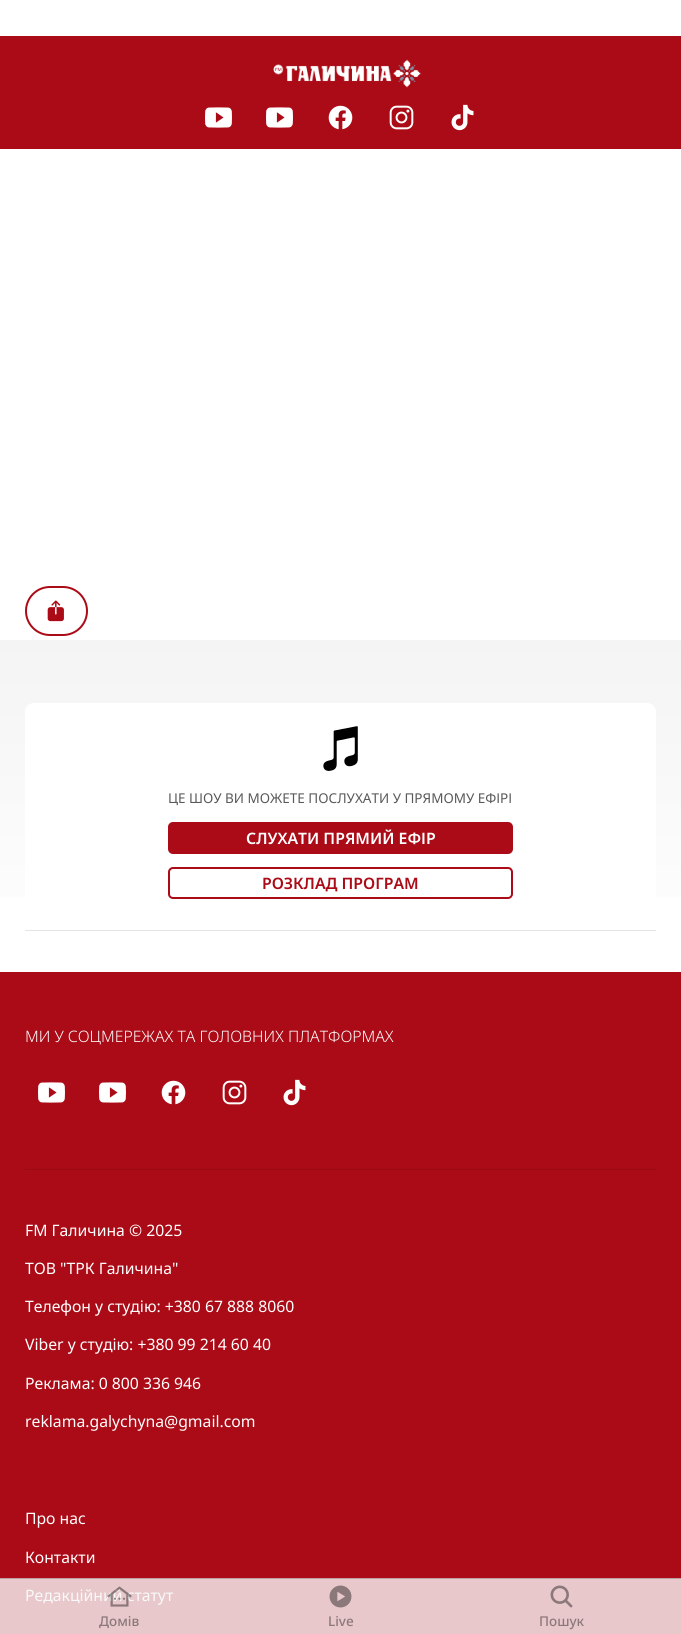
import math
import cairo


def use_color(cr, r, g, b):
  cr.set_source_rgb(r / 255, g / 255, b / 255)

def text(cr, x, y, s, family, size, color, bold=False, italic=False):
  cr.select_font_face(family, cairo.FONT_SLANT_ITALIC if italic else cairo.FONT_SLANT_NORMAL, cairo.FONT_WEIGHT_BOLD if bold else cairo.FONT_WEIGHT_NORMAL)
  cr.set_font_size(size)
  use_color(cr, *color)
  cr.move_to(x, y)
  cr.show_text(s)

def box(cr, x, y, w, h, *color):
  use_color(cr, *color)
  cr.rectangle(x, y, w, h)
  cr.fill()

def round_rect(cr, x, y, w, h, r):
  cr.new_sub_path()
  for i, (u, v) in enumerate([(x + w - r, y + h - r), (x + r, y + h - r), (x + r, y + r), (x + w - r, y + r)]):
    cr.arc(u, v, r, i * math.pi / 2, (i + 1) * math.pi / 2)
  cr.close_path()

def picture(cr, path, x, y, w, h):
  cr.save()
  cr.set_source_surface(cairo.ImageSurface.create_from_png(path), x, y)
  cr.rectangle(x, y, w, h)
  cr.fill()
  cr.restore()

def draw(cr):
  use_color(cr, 255, 255, 255)
  cr.paint()
  box(cr, 0, 36, 681, 113, 171, 11, 22)
  picture(cr, "img_01.png", 273, 59, 148, 29)
  picture(cr, "img_02.png", 205, 107, 27, 21)
  picture(cr, "img_02.png", 266, 107, 27, 21)
  picture(cr, "img_03.png", 328, 105, 25, 25)
  picture(cr, "img_04.png", 389, 105, 25, 25)
  picture(cr, "img_05.png", 451, 104, 23, 27)
  round_rect(cr, 26, 587, 61, 48, 24)
  cr.stroke()
  picture(cr, "img_06.png", 47, 600, 17, 22)
  gradient = cairo.LinearGradient(341, 640, 341, 972)
  gradient.add_color_stop_rgba(0, 0.957, 0.957, 0.957, 1)
  gradient.add_color_stop_rgba(1, 1, 1, 1, 1)
  cr.set_source(gradient)
  cr.rectangle(0, 640, 681, 257)
  cr.fill()
  use_color(cr, 255, 255, 255)
  round_rect(cr, 25, 703, 631, 214, 9)
  cr.fill()
  picture(cr, "img_07.png", 323, 726, 35, 45)
  use_color(cr, 171, 11, 22)
  round_rect(cr, 168, 822, 345, 32, 5)
  cr.fill()
  round_rect(cr, 169, 868, 343, 30, 4)
  cr.stroke()
  box(cr, 25, 930, 631, 1, 229, 229, 229)
  box(cr, 0, 972, 681, 606, 171, 11, 22)
  box(cr, 0, 1579, 681, 55, 232, 200, 203)
  picture(cr, "img_02.png", 38, 1082, 27, 21)
  picture(cr, "img_02.png", 99, 1082, 27, 21)
  picture(cr, "img_03.png", 161, 1080, 25, 25)
  picture(cr, "img_04.png", 222, 1080, 25, 25)
  picture(cr, "img_05.png", 283, 1079, 23, 27)
  box(cr, 25, 1169, 631, 1, 154, 10, 20)
  box(cr, 0, 1578, 681, 1, 185, 160, 162)
  picture(cr, "img_09.png", 329, 1585, 23, 23)
  picture(cr, "img_10.png", 550, 1585, 23, 23)
  text(cr, 168, 803, "ЦЕ ШОУ ВИ МОЖЕТЕ ПОСЛУХАТИ У ПРЯМОМУ ЕФІРІ", "Noto Sans", 13.5, (89, 89, 89))
  text(cr, 246, 844, "СЛУХАТИ ПРЯМИЙ ЕФІР", "Noto Sans SemiBold", 15.75, (255, 255, 255))
  text(cr, 262, 889, "РОЗКЛАД ПРОГРАМ", "Noto Sans SemiBold", 15.75, (171, 11, 22))
  text(cr, 25, 1042, "МИ У СОЦМЕРЕЖАХ ТА ГОЛОВНИХ ПЛАТФОРМАХ", "Noto Sans Light", 15.75, (255, 255, 255))
  text(cr, 25, 1236, "FM Галичина © 2025", "Noto Sans", 15.75, (255, 255, 255))
  text(cr, 25, 1274, "ТОВ \"ТРК Галичина\"", "Noto Sans", 15.75, (255, 255, 255))
  text(cr, 25, 1312, "Телефон у студію: +380 67 888 8060", "Noto Sans", 15.75, (255, 255, 255))
  text(cr, 25, 1350, "Viber у студію: +380 99 214 60 40", "Noto Sans", 15.75, (255, 255, 255))
  text(cr, 25, 1389, "Реклама: 0 800 336 946", "Noto Sans", 15.75, (255, 255, 255))
  text(cr, 25, 1427, "reklama.galychyna@gmail.com", "Noto Sans", 15.75, (255, 255, 255))
  text(cr, 25, 1524, "Про нас", "Noto Sans", 15.75, (255, 255, 255))
  text(cr, 25, 1563, "Контакти", "Noto Sans", 15.75, (255, 255, 255))
  text(cr, 25, 1601, "Редакційний статут", "Noto Sans", 15.75, (249, 249, 249))
  picture(cr, "img_08.png", 107, 1586, 25, 21)
  text(cr, 99, 1626, "Домів", "Noto Sans Medium", 13.5, (139, 120, 122))
  text(cr, 328, 1626, "Live", "Noto Sans Medium", 13.5, (139, 120, 122))
  text(cr, 539, 1626, "Пошук", "Noto Sans Medium", 13.5, (139, 120, 122))


surface = cairo.ImageSurface(cairo.FORMAT_RGB24, 681, 1634)
cr = cairo.Context(surface)
options = cairo.FontOptions()
options.set_hint_metrics(cairo.HINT_METRICS_OFF)
options.set_hint_style(cairo.HINT_STYLE_NONE)
cr.set_font_options(options)
cr.set_miter_limit(4)
draw(cr)
surface.write_to_png("out.png")
